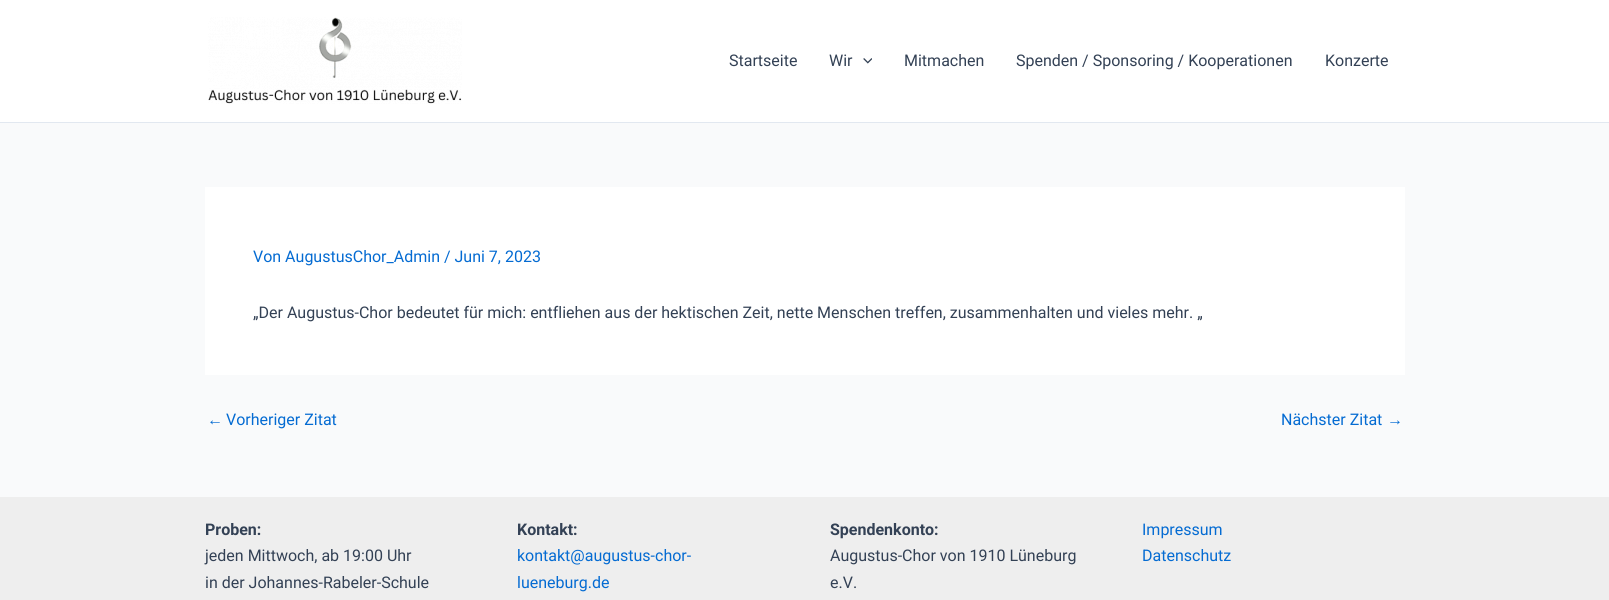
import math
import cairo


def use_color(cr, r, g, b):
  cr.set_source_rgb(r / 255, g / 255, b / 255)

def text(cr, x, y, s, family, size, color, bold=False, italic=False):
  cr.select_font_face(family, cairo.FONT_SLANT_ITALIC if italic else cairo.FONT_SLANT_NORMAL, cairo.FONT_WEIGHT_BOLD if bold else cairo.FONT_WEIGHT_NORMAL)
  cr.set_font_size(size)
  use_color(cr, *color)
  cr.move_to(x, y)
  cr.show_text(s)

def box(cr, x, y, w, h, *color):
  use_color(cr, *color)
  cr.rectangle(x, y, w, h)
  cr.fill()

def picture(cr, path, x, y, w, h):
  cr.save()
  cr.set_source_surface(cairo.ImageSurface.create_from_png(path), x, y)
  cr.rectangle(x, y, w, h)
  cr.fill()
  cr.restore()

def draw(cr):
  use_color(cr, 249, 250, 251)
  cr.paint()
  box(cr, 0, 0, 1609, 122, 255, 255, 255)
  box(cr, 0, 122, 1609, 1, 226, 232, 240)
  picture(cr, "img_01.png", 208, 17, 254, 87)
  picture(cr, "img_02.png", 863, 58, 9, 6)
  box(cr, 205, 187, 1200, 188, 255, 255, 255)
  box(cr, 0, 497, 1609, 103, 238, 238, 238)
  text(cr, 729, 66, "Startseite", "Roboto", 16, (51, 65, 85))
  text(cr, 829, 66, "Wir", "Roboto", 16, (51, 65, 85))
  text(cr, 904, 66, "Mitmachen", "Roboto", 16, (51, 65, 85))
  text(cr, 1016, 66, "Spenden / Sponsoring / Kooperationen", "Roboto", 16, (51, 65, 85))
  text(cr, 1325, 66, "Konzerte", "Roboto", 16, (51, 65, 85))
  text(cr, 253, 262, "Von AugustusChor_Admin / Juni 7, 2023", "Roboto", 16, (4, 107, 210))
  text(cr, 253, 318, "„Der Augustus-Chor bedeutet für mich: entfliehen aus der hektischen Zeit, nette Menschen treffen, zusammenhalten und vieles mehr. „", "Roboto", 16, (51, 65, 85))
  text(cr, 207, 425, "←", "Liberation Sans", 16, (4, 107, 210))
  text(cr, 226, 425, "Vorheriger Zitat", "Roboto", 16, (4, 107, 210))
  text(cr, 1281, 425, "Nächster Zitat", "Roboto", 16, (4, 107, 210))
  text(cr, 1387, 425, "→", "Liberation Sans", 16, (4, 107, 210))
  text(cr, 205, 535, "Proben:", "Roboto", 16, (51, 65, 85), bold=True)
  text(cr, 205, 561, "jeden Mittwoch, ab 19:00 Uhr", "Roboto", 16, (51, 65, 85))
  text(cr, 205, 588, "in der Johannes-Rabeler-Schule", "Roboto", 16, (51, 65, 85))
  text(cr, 517, 535, "Kontakt:", "Roboto", 16, (51, 65, 85), bold=True)
  text(cr, 517, 561, "kontakt@augustus-chor-", "Roboto", 16, (4, 107, 210))
  text(cr, 517, 588, "lueneburg.de", "Roboto", 16, (4, 107, 210))
  text(cr, 830, 535, "Spendenkonto:", "Roboto", 16, (51, 65, 85), bold=True)
  text(cr, 830, 561, "Augustus-Chor von 1910 Lüneburg", "Roboto", 16, (51, 65, 85))
  text(cr, 830, 588, "e.V.", "Roboto", 16, (51, 65, 85))
  text(cr, 1142, 535, "Impressum", "Roboto", 16, (4, 107, 210))
  text(cr, 1142, 561, "Datenschutz", "Roboto", 16, (4, 107, 210))


surface = cairo.ImageSurface(cairo.FORMAT_RGB24, 1609, 600)
cr = cairo.Context(surface)
options = cairo.FontOptions()
options.set_hint_metrics(cairo.HINT_METRICS_OFF)
options.set_hint_style(cairo.HINT_STYLE_NONE)
cr.set_font_options(options)
cr.set_miter_limit(4)
draw(cr)
surface.write_to_png("out.png")
